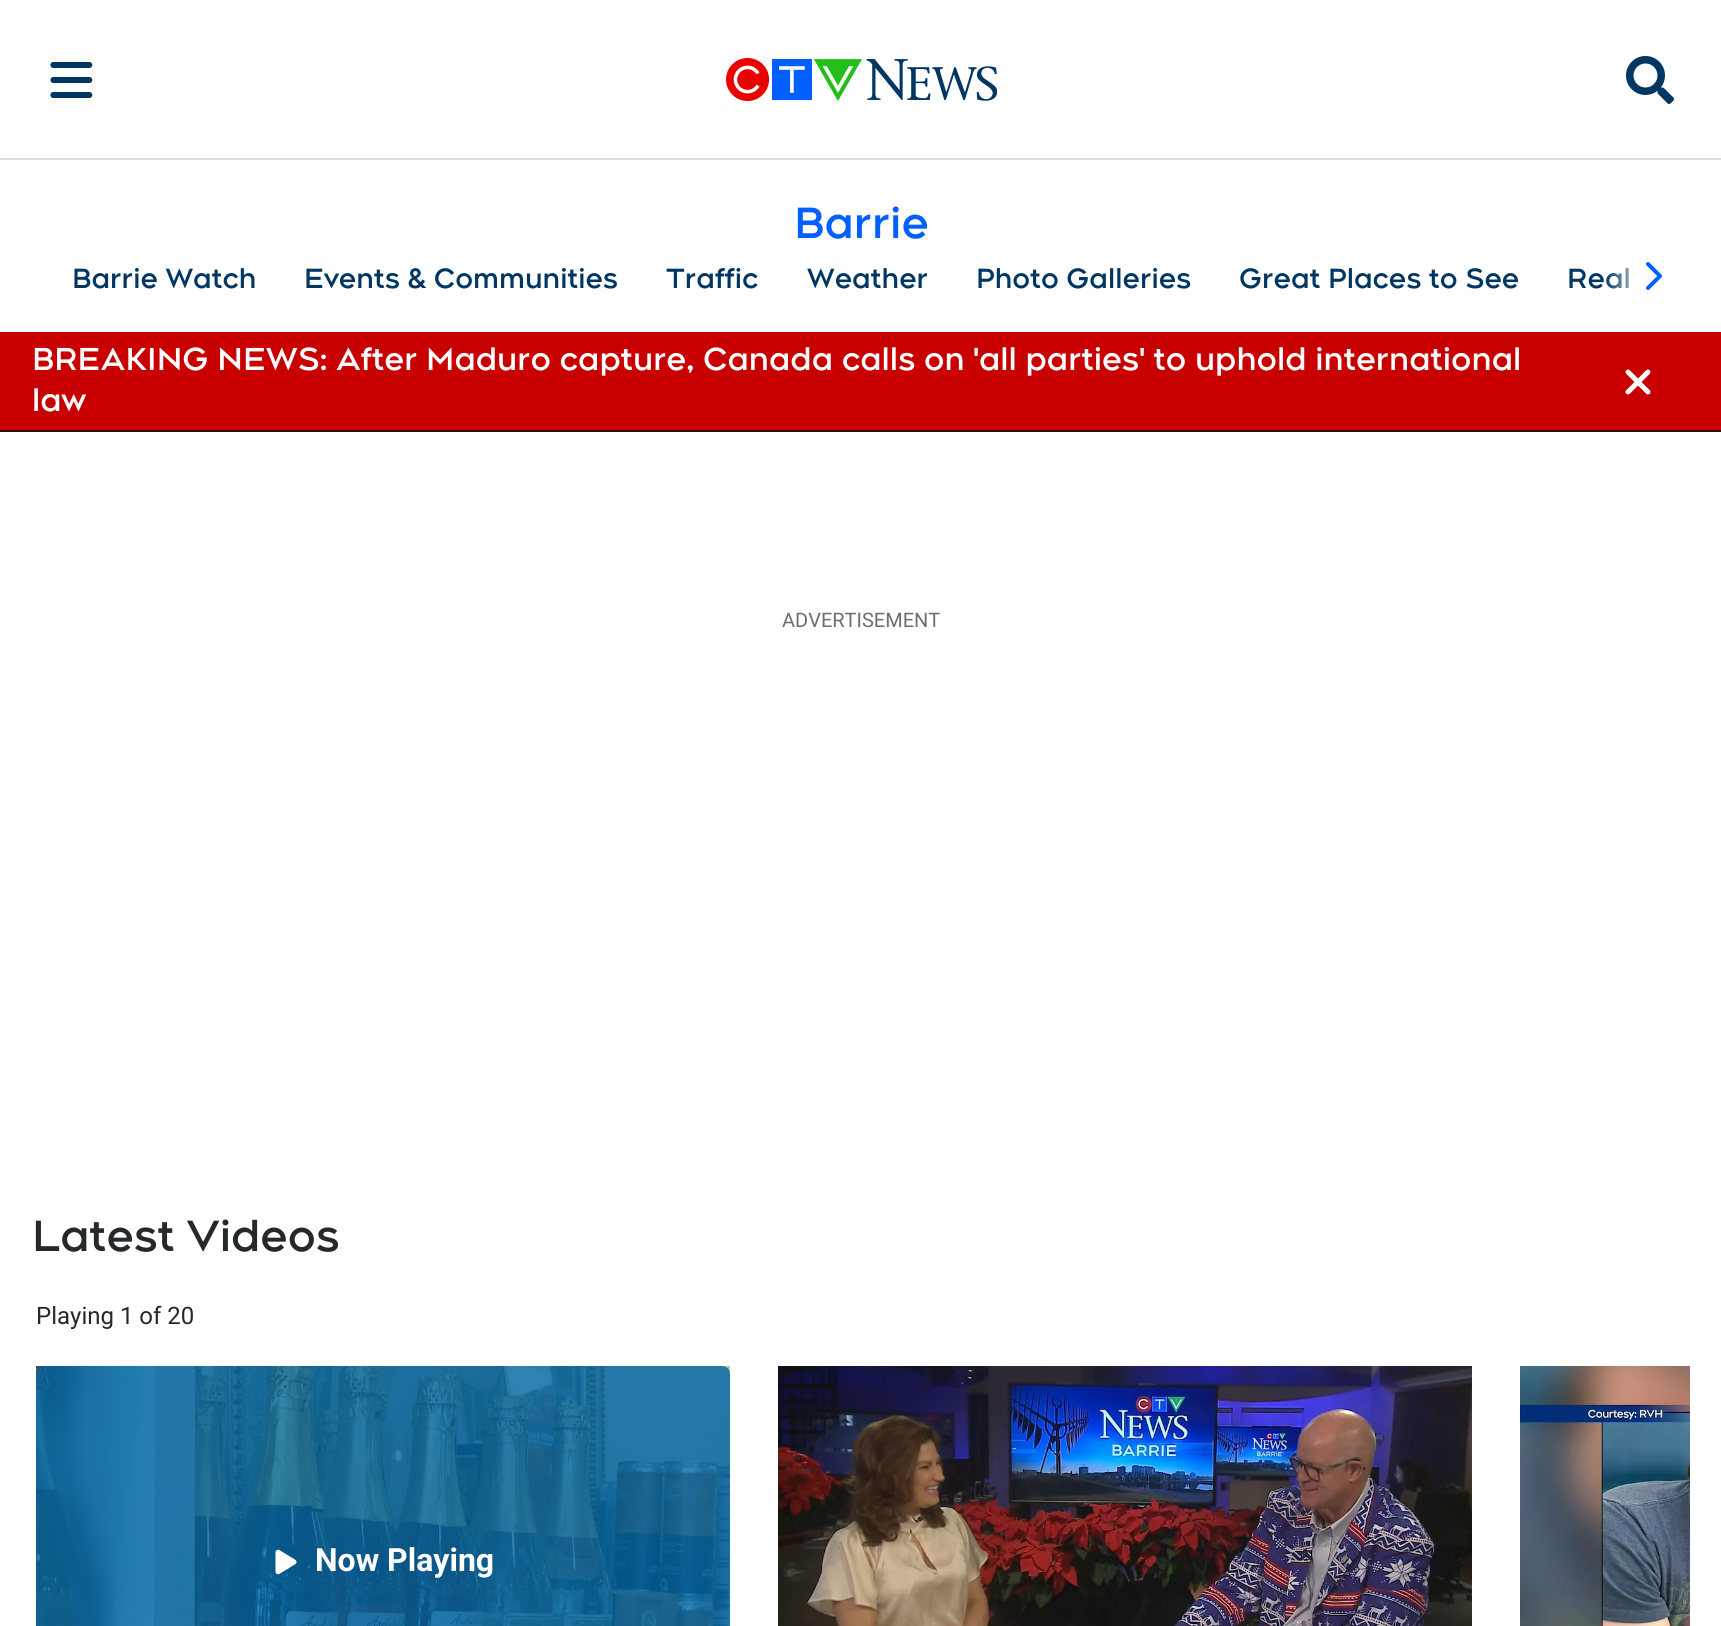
import math
import cairo


def use_color(cr, r, g, b):
  cr.set_source_rgb(r / 255, g / 255, b / 255)

def text(cr, x, y, s, family, size, color, bold=False, italic=False):
  cr.select_font_face(family, cairo.FONT_SLANT_ITALIC if italic else cairo.FONT_SLANT_NORMAL, cairo.FONT_WEIGHT_BOLD if bold else cairo.FONT_WEIGHT_NORMAL)
  cr.set_font_size(size)
  use_color(cr, *color)
  cr.move_to(x, y)
  cr.show_text(s)

def box(cr, x, y, w, h, *color):
  use_color(cr, *color)
  cr.rectangle(x, y, w, h)
  cr.fill()

def round_rect(cr, x, y, w, h, r):
  cr.new_sub_path()
  for i, (u, v) in enumerate([(x + w - r, y + h - r), (x + r, y + h - r), (x + r, y + r), (x + w - r, y + r)]):
    cr.arc(u, v, r, i * math.pi / 2, (i + 1) * math.pi / 2)
  cr.close_path()

def picture(cr, path, x, y, w, h):
  cr.save()
  cr.set_source_surface(cairo.ImageSurface.create_from_png(path), x, y)
  cr.rectangle(x, y, w, h)
  cr.fill()
  cr.restore()

def draw(cr):
  use_color(cr, 255, 255, 255)
  cr.paint()
  box(cr, 0, 158, 1721, 2, 221, 221, 221)
  picture(cr, "img_01.png", 50, 62, 43, 36)
  picture(cr, "img_02.png", 726, 58, 271, 43)
  picture(cr, "img_03.png", 1626, 56, 48, 48)
  box(cr, 0, 332, 1721, 98, 200, 0, 0)
  box(cr, 0, 430, 1721, 2, 55, 10, 0)
  picture(cr, "img_05.png", 1625, 369, 26, 26)
  picture(cr, "img_06.png", 36, 1366, 694, 260)
  picture(cr, "img_07.png", 275, 1549, 22, 26)
  picture(cr, "img_08.png", 778, 1366, 694, 260)
  picture(cr, "img_09.png", 1520, 1366, 170, 260)
  text(cr, 794, 238, "Barrie", "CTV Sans", 44, (0, 95, 255), bold=True)
  text(cr, 72, 288, "Barrie Watch", "CTV Sans", 28, (0, 54, 98), bold=True)
  text(cr, 304, 288, "Events & Communities", "CTV Sans", 28, (0, 54, 98), bold=True)
  text(cr, 666, 288, "Traffic", "CTV Sans", 28, (0, 54, 98), bold=True)
  text(cr, 807, 288, "Weather", "CTV Sans", 28, (0, 54, 98), bold=True)
  text(cr, 976, 288, "Photo Galleries", "CTV Sans", 28, (0, 54, 98), bold=True)
  text(cr, 1239, 288, "Great Places to See", "CTV Sans", 28, (0, 54, 98), bold=True)
  text(cr, 1567, 288, "Real", "CTV Sans", 28, (0, 54, 98), bold=True)
  cr.save()
  cr.rectangle(24, 250, 1674, 50)
  cr.clip()
  gradient = cairo.LinearGradient(1700, 275, 1604, 275)
  gradient.add_color_stop_rgba(0.5, 1, 1, 1, 1)
  gradient.add_color_stop_rgba(1, 1, 1, 1, 0)
  cr.set_source(gradient)
  round_rect(cr, 1604, 250, 96, 50, 8)
  cr.fill()
  cr.restore()
  picture(cr, "img_04.png", 1646, 262, 16, 28)
  text(cr, 32, 370, "BREAKING NEWS: After Maduro capture, Canada calls on 'all parties' to uphold international", "CTV Sans", 32, (255, 255, 255), bold=True)
  text(cr, 32, 411, "law", "CTV Sans", 32, (255, 255, 255), bold=True)
  text(cr, 782, 627, "ADVERTISEMENT", "Roboto", 20, (110, 110, 110))
  text(cr, 32, 1251, "Latest Videos", "CTV Sans", 44, (38, 41, 43), bold=True)
  text(cr, 36, 1324, "Playing 1 of 20", "Roboto", 24, (38, 41, 43))
  text(cr, 315, 1571, "Now Playing", "Roboto", 32, (255, 255, 255), bold=True)


surface = cairo.ImageSurface(cairo.FORMAT_RGB24, 1721, 1626)
cr = cairo.Context(surface)
options = cairo.FontOptions()
options.set_hint_metrics(cairo.HINT_METRICS_OFF)
options.set_hint_style(cairo.HINT_STYLE_NONE)
cr.set_font_options(options)
cr.set_miter_limit(4)
draw(cr)
surface.write_to_png("out.png")
